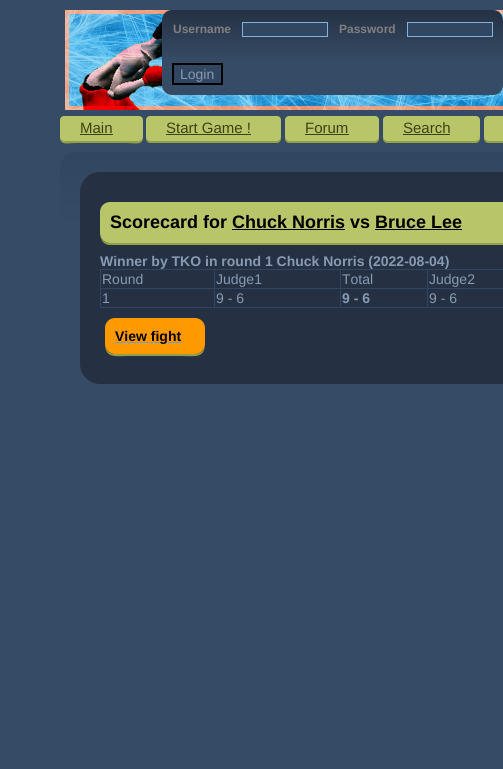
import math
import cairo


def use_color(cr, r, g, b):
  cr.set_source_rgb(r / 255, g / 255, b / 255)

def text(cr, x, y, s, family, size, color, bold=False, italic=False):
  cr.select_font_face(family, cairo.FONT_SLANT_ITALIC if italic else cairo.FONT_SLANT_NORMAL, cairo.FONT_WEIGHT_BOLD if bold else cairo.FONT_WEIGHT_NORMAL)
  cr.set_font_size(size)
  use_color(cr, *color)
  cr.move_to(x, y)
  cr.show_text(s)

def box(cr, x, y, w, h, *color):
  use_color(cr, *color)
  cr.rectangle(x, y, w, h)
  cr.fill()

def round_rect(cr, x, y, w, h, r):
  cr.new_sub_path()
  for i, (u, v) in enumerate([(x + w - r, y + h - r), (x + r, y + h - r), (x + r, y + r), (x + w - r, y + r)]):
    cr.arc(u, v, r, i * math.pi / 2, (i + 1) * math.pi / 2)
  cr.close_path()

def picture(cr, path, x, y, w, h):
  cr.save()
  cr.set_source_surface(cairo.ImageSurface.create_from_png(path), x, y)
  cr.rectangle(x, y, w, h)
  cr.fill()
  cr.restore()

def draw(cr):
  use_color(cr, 54, 75, 102)
  cr.paint()
  picture(cr, "img_01.png", 65, 10, 438, 100)
  gradient = cairo.LinearGradient(162, 10, 162, 61)
  gradient.add_color_stop_rgba(0, 0.145, 0.192, 0.259, 1)
  gradient.add_color_stop_rgba(1, 0.212, 0.294, 0.4, 1)
  cr.set_source(gradient)
  round_rect(cr, 162, 10, 341, 85, 10)
  cr.fill()
  use_color(cr, 49, 70, 96)
  cr.rectangle(242.5, 22.5, 85, 14)
  cr.fill_preserve()
  use_color(cr, 133, 177, 222)
  cr.set_line_width(1)
  cr.stroke()
  use_color(cr, 49, 70, 96)
  cr.rectangle(407.5, 22.5, 85, 14)
  cr.fill_preserve()
  use_color(cr, 133, 177, 222)
  cr.stroke()
  use_color(cr, 49, 70, 96)
  cr.rectangle(173, 64, 49, 20)
  cr.fill_preserve()
  use_color(cr, 0, 0, 0)
  cr.set_line_width(2)
  cr.stroke()
  use_color(cr, 147, 160, 69)
  cr.new_path()
  cr.move_to(60, 137)
  cr.curve_to(60, 146, 68, 143, 76, 143)
  cr.line_to(126, 143)
  cr.curve_to(135, 143, 143, 146, 143, 137)
  cr.curve_to(143, 139, 141, 141, 139, 141)
  cr.line_to(64, 141)
  cr.curve_to(62, 141, 60, 139, 60, 137)
  cr.close_path()
  cr.fill()
  use_color(cr, 184, 197, 105)
  round_rect(cr, 60, 116, 83, 25, 4)
  cr.fill()
  box(cr, 80, 134, 33, 1, 60, 67, 19)
  use_color(cr, 147, 160, 69)
  cr.new_path()
  cr.move_to(146, 137)
  cr.line_to(146, 139)
  cr.curve_to(146, 141, 148, 143, 150, 143)
  cr.line_to(277, 143)
  cr.curve_to(279, 143, 281, 141, 281, 139)
  cr.line_to(281, 137)
  cr.curve_to(281, 139, 279, 141, 277, 141)
  cr.line_to(150, 141)
  cr.curve_to(148, 141, 146, 139, 146, 137)
  cr.close_path()
  cr.fill()
  use_color(cr, 184, 197, 105)
  round_rect(cr, 146, 116, 135, 25, 4)
  cr.fill()
  box(cr, 166, 134, 85, 1, 60, 67, 19)
  use_color(cr, 147, 160, 69)
  cr.new_path()
  cr.move_to(285, 137)
  cr.line_to(285, 139)
  cr.curve_to(285, 141, 287, 143, 289, 143)
  cr.line_to(375, 143)
  cr.curve_to(377, 143, 379, 141, 379, 139)
  cr.line_to(379, 137)
  cr.curve_to(379, 139, 377, 141, 375, 141)
  cr.line_to(289, 141)
  cr.curve_to(287, 141, 285, 139, 285, 137)
  cr.close_path()
  cr.fill()
  use_color(cr, 184, 197, 105)
  round_rect(cr, 285, 116, 94, 25, 4)
  cr.fill()
  box(cr, 305, 134, 44, 1, 60, 67, 19)
  use_color(cr, 147, 160, 69)
  cr.new_path()
  cr.move_to(383, 137)
  cr.line_to(383, 139)
  cr.curve_to(383, 141, 385, 143, 387, 143)
  cr.line_to(476, 143)
  cr.curve_to(478, 143, 480, 141, 480, 139)
  cr.line_to(480, 137)
  cr.curve_to(480, 139, 478, 141, 476, 141)
  cr.line_to(387, 141)
  cr.curve_to(385, 141, 383, 139, 383, 137)
  cr.close_path()
  cr.fill()
  use_color(cr, 184, 197, 105)
  round_rect(cr, 383, 116, 97, 25, 4)
  cr.fill()
  box(cr, 403, 134, 47, 1, 60, 67, 19)
  use_color(cr, 147, 160, 69)
  cr.new_path()
  cr.move_to(484, 137)
  cr.line_to(484, 139)
  cr.curve_to(484, 141, 486, 143, 488, 143)
  cr.line_to(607, 143)
  cr.curve_to(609, 143, 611, 141, 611, 139)
  cr.line_to(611, 137)
  cr.curve_to(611, 139, 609, 141, 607, 141)
  cr.line_to(488, 141)
  cr.curve_to(486, 141, 484, 139, 484, 137)
  cr.close_path()
  cr.fill()
  use_color(cr, 184, 197, 105)
  round_rect(cr, 484, 116, 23, 25, 4)
  cr.fill()
  gradient = cairo.LinearGradient(60, 152, 60, 228)
  gradient.add_color_stop_rgba(0, 0.192, 0.275, 0.376, 1)
  gradient.add_color_stop_rgba(1, 0.212, 0.294, 0.4, 1)
  cr.set_source(gradient)
  round_rect(cr, 60, 152, 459, 252, 16)
  cr.fill()
  use_color(cr, 37, 49, 66)
  round_rect(cr, 80, 172, 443, 212, 20)
  cr.fill()
  use_color(cr, 147, 160, 69)
  cr.new_path()
  cr.move_to(100, 233)
  cr.curve_to(100, 239, 103, 245, 110, 245)
  cr.line_to(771, 245)
  cr.curve_to(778, 245, 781, 239, 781, 233)
  cr.curve_to(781, 239, 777, 243, 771, 243)
  cr.line_to(110, 243)
  cr.curve_to(104, 243, 100, 239, 100, 233)
  cr.close_path()
  cr.fill()
  use_color(cr, 184, 197, 105)
  round_rect(cr, 100, 202, 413, 41, 10)
  cr.fill()
  box(cr, 232, 229, 113, 1, 0, 0, 0)
  box(cr, 375, 229, 87, 1, 0, 0, 0)
  box(cr, 427, 269, 76, 1, 49, 70, 96)
  box(cr, 427, 288, 76, 1, 49, 70, 96)
  box(cr, 427, 307, 76, 1, 49, 70, 96)
  box(cr, 427, 288, 1, 20, 49, 70, 96)
  box(cr, 340, 288, 88, 1, 49, 70, 96)
  box(cr, 427, 269, 1, 20, 49, 70, 96)
  box(cr, 340, 269, 88, 1, 49, 70, 96)
  box(cr, 340, 307, 88, 1, 49, 70, 96)
  box(cr, 340, 288, 1, 20, 49, 70, 96)
  box(cr, 214, 288, 127, 1, 49, 70, 96)
  box(cr, 340, 269, 1, 20, 49, 70, 96)
  box(cr, 214, 269, 127, 1, 49, 70, 96)
  box(cr, 214, 307, 127, 1, 49, 70, 96)
  box(cr, 214, 288, 1, 20, 49, 70, 96)
  box(cr, 100, 288, 115, 1, 49, 70, 96)
  box(cr, 214, 269, 1, 20, 49, 70, 96)
  box(cr, 100, 269, 115, 1, 49, 70, 96)
  box(cr, 100, 307, 115, 1, 49, 70, 96)
  box(cr, 100, 288, 1, 20, 49, 70, 96)
  box(cr, 100, 269, 1, 20, 49, 70, 96)
  use_color(cr, 147, 160, 69)
  cr.new_path()
  cr.move_to(105, 344)
  cr.curve_to(105, 359, 117, 356, 128, 356)
  cr.line_to(182, 356)
  cr.curve_to(193, 356, 205, 359, 205, 344)
  cr.curve_to(205, 350, 201, 354, 195, 354)
  cr.line_to(115, 354)
  cr.curve_to(109, 354, 105, 350, 105, 344)
  cr.close_path()
  cr.fill()
  use_color(cr, 255, 153, 0)
  round_rect(cr, 105, 318, 100, 36, 10)
  cr.fill()
  box(cr, 115, 342, 66, 1, 134, 154, 177)
  text(cr, 173, 33, "Username", "Liberation Sans", 12, (128, 128, 128), bold=True)
  text(cr, 339, 33, "Password", "Liberation Sans", 12, (128, 128, 128), bold=True)
  text(cr, 180, 79, "Login", "Liberation Sans", 14, (134, 154, 177))
  text(cr, 80, 133, "Main", "Liberation Sans", 15, (60, 67, 19))
  text(cr, 166, 133, "Start Game !", "Liberation Sans", 15, (60, 67, 19))
  text(cr, 305, 133, "Forum", "Liberation Sans", 15, (60, 67, 19))
  text(cr, 403, 133, "Search", "Liberation Sans", 15, (60, 67, 19))
  text(cr, 110, 228, "Scorecard for Chuck Norris vs Bruce Lee", "Liberation Sans", 18, (0, 0, 0), bold=True)
  text(cr, 100, 266, "Winner by TKO in round 1 Chuck Norris (2022-08-04)", "Liberation Sans", 14, (134, 154, 177), bold=True)
  text(cr, 102, 284, "Round", "Liberation Sans", 14, (134, 154, 177))
  text(cr, 216, 284, "Judge1", "Liberation Sans", 14, (134, 154, 177))
  text(cr, 342, 284, "Total", "Liberation Sans", 14, (134, 154, 177))
  text(cr, 429, 284, "Judge2", "Liberation Sans", 14, (134, 154, 177))
  text(cr, 102, 303, "1", "Liberation Sans", 14, (134, 154, 177))
  text(cr, 216, 303, "9 - 6", "Liberation Sans", 14, (134, 154, 177))
  text(cr, 342, 303, "9 - 6", "Liberation Sans", 14, (134, 154, 177), bold=True)
  text(cr, 429, 303, "9 - 6", "Liberation Sans", 14, (134, 154, 177))
  text(cr, 115, 341, "View fight", "Liberation Sans", 14, (0, 0, 0), bold=True)


surface = cairo.ImageSurface(cairo.FORMAT_RGB24, 503, 769)
cr = cairo.Context(surface)
options = cairo.FontOptions()
options.set_hint_metrics(cairo.HINT_METRICS_OFF)
options.set_hint_style(cairo.HINT_STYLE_NONE)
cr.set_font_options(options)
cr.set_miter_limit(4)
draw(cr)
surface.write_to_png("out.png")
